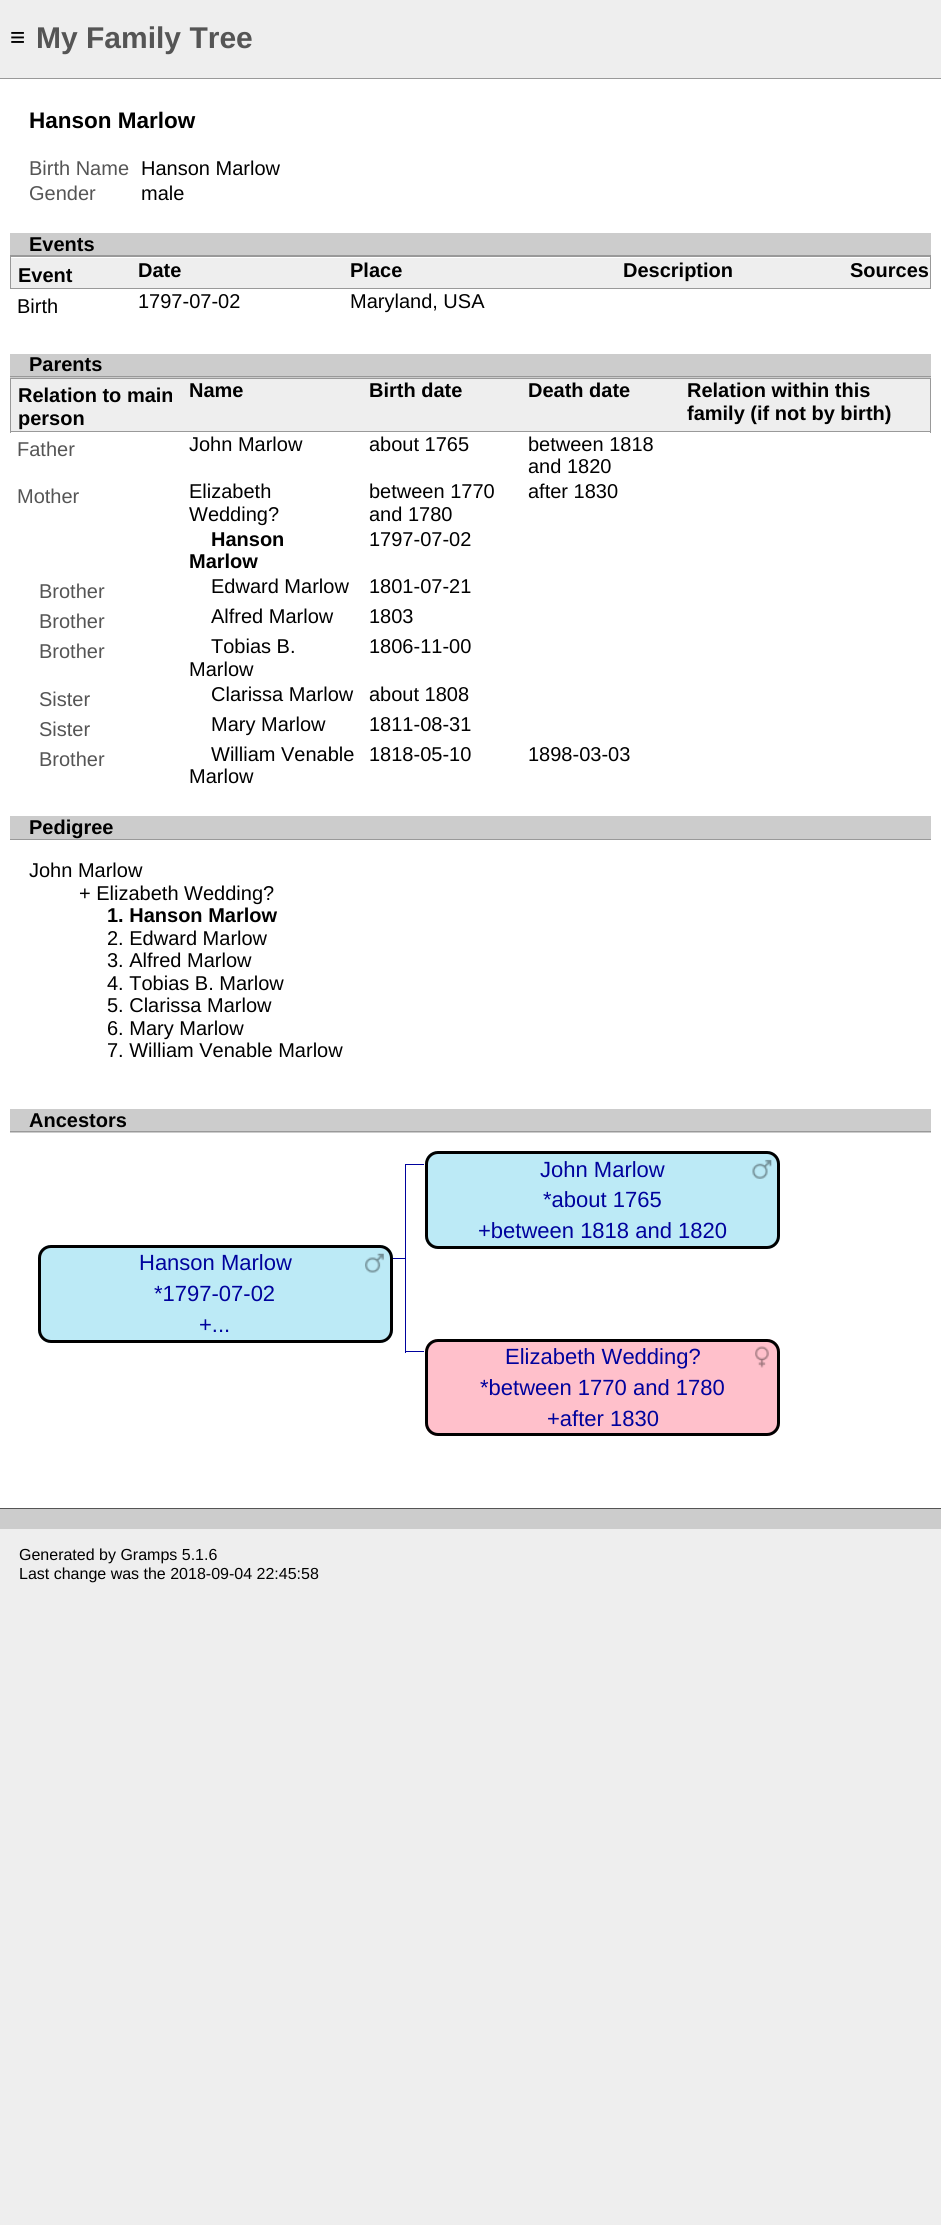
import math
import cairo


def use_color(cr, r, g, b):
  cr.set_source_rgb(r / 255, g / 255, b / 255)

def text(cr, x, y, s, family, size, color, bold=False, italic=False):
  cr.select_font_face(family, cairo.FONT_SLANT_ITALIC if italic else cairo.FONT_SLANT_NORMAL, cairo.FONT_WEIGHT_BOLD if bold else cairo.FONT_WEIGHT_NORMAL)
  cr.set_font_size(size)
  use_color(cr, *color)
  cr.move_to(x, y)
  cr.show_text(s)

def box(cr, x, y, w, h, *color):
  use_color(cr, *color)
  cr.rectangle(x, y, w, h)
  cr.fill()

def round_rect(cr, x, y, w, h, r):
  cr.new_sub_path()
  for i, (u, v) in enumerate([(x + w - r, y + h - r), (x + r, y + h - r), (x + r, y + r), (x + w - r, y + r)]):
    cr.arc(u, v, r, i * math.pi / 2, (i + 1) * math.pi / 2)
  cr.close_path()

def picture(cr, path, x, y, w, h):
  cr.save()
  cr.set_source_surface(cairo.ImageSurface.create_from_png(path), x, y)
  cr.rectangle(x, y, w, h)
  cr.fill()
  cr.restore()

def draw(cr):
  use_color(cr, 238, 238, 238)
  cr.paint()
  box(cr, 0, 79, 941, 1429, 255, 255, 255)
  box(cr, 0, 78, 941, 1, 153, 153, 153)
  box(cr, 10, 233, 921, 22, 204, 204, 204)
  box(cr, 10, 255, 921, 1, 153, 153, 153)
  box(cr, 11, 258, 919, 30, 238, 238, 238)
  box(cr, 10, 256, 921, 1, 153, 153, 153)
  box(cr, 930, 256, 1, 33, 153, 153, 153)
  box(cr, 10, 288, 921, 1, 153, 153, 153)
  box(cr, 10, 256, 1, 33, 153, 153, 153)
  box(cr, 10, 354, 921, 24, 204, 204, 204)
  box(cr, 10, 376, 921, 1, 153, 153, 153)
  box(cr, 11, 379, 919, 52, 238, 238, 238)
  box(cr, 10, 378, 921, 1, 153, 153, 153)
  box(cr, 930, 378, 1, 55, 153, 153, 153)
  box(cr, 10, 431, 921, 1, 153, 153, 153)
  box(cr, 10, 378, 1, 55, 153, 153, 153)
  box(cr, 10, 816, 921, 23, 204, 204, 204)
  box(cr, 10, 839, 921, 1, 153, 153, 153)
  box(cr, 10, 1109, 921, 24, 204, 204, 204)
  box(cr, 10, 1131, 921, 1, 153, 153, 153)
  box(cr, 405, 1164, 19, 1, 0, 2, 157)
  use_color(cr, 188, 234, 246)
  round_rect(cr, 425, 1151, 355, 98, 13)
  cr.fill()
  picture(cr, "img_01.png", 752, 1159, 20, 20)
  round_rect(cr, 426.5, 1152.5, 352, 95, 11.5)
  use_color(cr, 0, 0, 0)
  cr.set_line_width(3)
  cr.stroke()
  box(cr, 405, 1164, 1, 95, 0, 2, 157)
  box(cr, 386, 1258, 19, 1, 0, 2, 157)
  use_color(cr, 188, 234, 246)
  round_rect(cr, 38, 1245, 355, 98, 13)
  cr.fill()
  picture(cr, "img_02.png", 365, 1253, 19, 20)
  round_rect(cr, 39.5, 1246.5, 352, 95, 11.5)
  use_color(cr, 0, 0, 0)
  cr.stroke()
  box(cr, 405, 1351, 19, 1, 0, 2, 157)
  box(cr, 405, 1258, 1, 95, 0, 2, 157)
  use_color(cr, 255, 192, 203)
  round_rect(cr, 425, 1339, 355, 97, 13)
  cr.fill()
  picture(cr, "img_03.png", 755, 1346, 14, 22)
  round_rect(cr, 426.5, 1340.5, 352, 94, 11.5)
  use_color(cr, 0, 0, 0)
  cr.stroke()
  box(cr, 0, 1509, 941, 20, 204, 204, 204)
  box(cr, 0, 1508, 941, 1, 85, 85, 85)
  text(cr, 10, 46, "≡", "Liberation Sans", 26, (0, 0, 0))
  text(cr, 36, 48, "My Family Tree", "Liberation Sans", 30, (85, 85, 85), bold=True)
  text(cr, 29, 128, "Hanson Marlow", "Liberation Sans", 22.5, (0, 0, 0), bold=True)
  text(cr, 29, 175, "Birth Name", "Liberation Sans", 20, (85, 85, 85))
  text(cr, 141, 175, "Hanson Marlow", "Liberation Sans", 20, (0, 0, 0))
  text(cr, 29, 200, "Gender", "Liberation Sans", 20, (85, 85, 85))
  text(cr, 141, 200, "male", "Liberation Sans", 20, (0, 0, 0))
  text(cr, 29, 251, "Events", "Liberation Sans", 20, (0, 0, 0), bold=True)
  text(cr, 18, 282, "Event", "Liberation Sans", 20, (0, 0, 0), bold=True)
  text(cr, 138, 277, "Date", "Liberation Sans", 20, (0, 0, 0), bold=True)
  text(cr, 350, 277, "Place", "Liberation Sans", 20, (0, 0, 0), bold=True)
  text(cr, 623, 277, "Description", "Liberation Sans", 20, (0, 0, 0), bold=True)
  text(cr, 850, 277, "Sources", "Liberation Sans", 20, (0, 0, 0), bold=True)
  text(cr, 17, 313, "Birth", "Liberation Sans", 20, (0, 0, 0))
  text(cr, 138, 308, "1797-07-02", "Liberation Sans", 20, (0, 0, 0))
  text(cr, 350, 308, "Maryland, USA", "Liberation Sans", 20, (0, 0, 0))
  text(cr, 29, 371, "Parents", "Liberation Sans", 20, (0, 0, 0), bold=True)
  text(cr, 18, 402, "Relation to main", "Liberation Sans", 20, (0, 0, 0), bold=True)
  text(cr, 18, 425, "person", "Liberation Sans", 20, (0, 0, 0), bold=True)
  text(cr, 189, 397, "Name", "Liberation Sans", 20, (0, 0, 0), bold=True)
  text(cr, 369, 397, "Birth date", "Liberation Sans", 20, (0, 0, 0), bold=True)
  text(cr, 528, 397, "Death date", "Liberation Sans", 20, (0, 0, 0), bold=True)
  text(cr, 687, 397, "Relation within this", "Liberation Sans", 20, (0, 0, 0), bold=True)
  text(cr, 687, 420, "family (if not by birth)", "Liberation Sans", 20, (0, 0, 0), bold=True)
  text(cr, 17, 456, "Father", "Liberation Sans", 20, (85, 85, 85))
  text(cr, 189, 451, "John Marlow", "Liberation Sans", 20, (0, 0, 0))
  text(cr, 369, 451, "about 1765", "Liberation Sans", 20, (0, 0, 0))
  text(cr, 528, 451, "between 1818", "Liberation Sans", 20, (0, 0, 0))
  text(cr, 528, 473, "and 1820", "Liberation Sans", 20, (0, 0, 0))
  text(cr, 17, 503, "Mother", "Liberation Sans", 20, (85, 85, 85))
  text(cr, 189, 498, "Elizabeth", "Liberation Sans", 20, (0, 0, 0))
  text(cr, 189, 521, "Wedding?", "Liberation Sans", 20, (0, 0, 0))
  text(cr, 369, 498, "between 1770", "Liberation Sans", 20, (0, 0, 0))
  text(cr, 369, 521, "and 1780", "Liberation Sans", 20, (0, 0, 0))
  text(cr, 528, 498, "after 1830", "Liberation Sans", 20, (0, 0, 0))
  text(cr, 211, 546, "Hanson", "Liberation Sans", 20, (0, 0, 0), bold=True)
  text(cr, 189, 568, "Marlow", "Liberation Sans", 20, (0, 0, 0), bold=True)
  text(cr, 369, 546, "1797-07-02", "Liberation Sans", 20, (0, 0, 0))
  text(cr, 39, 598, "Brother", "Liberation Sans", 20, (85, 85, 85))
  text(cr, 211, 593, "Edward Marlow", "Liberation Sans", 20, (0, 0, 0))
  text(cr, 369, 593, "1801-07-21", "Liberation Sans", 20, (0, 0, 0))
  text(cr, 39, 628, "Brother", "Liberation Sans", 20, (85, 85, 85))
  text(cr, 211, 623, "Alfred Marlow", "Liberation Sans", 20, (0, 0, 0))
  text(cr, 369, 623, "1803", "Liberation Sans", 20, (0, 0, 0))
  text(cr, 39, 658, "Brother", "Liberation Sans", 20, (85, 85, 85))
  text(cr, 211, 653, "Tobias B.", "Liberation Sans", 20, (0, 0, 0))
  text(cr, 189, 676, "Marlow", "Liberation Sans", 20, (0, 0, 0))
  text(cr, 369, 653, "1806-11-00", "Liberation Sans", 20, (0, 0, 0))
  text(cr, 39, 706, "Sister", "Liberation Sans", 20, (85, 85, 85))
  text(cr, 211, 701, "Clarissa Marlow", "Liberation Sans", 20, (0, 0, 0))
  text(cr, 369, 701, "about 1808", "Liberation Sans", 20, (0, 0, 0))
  text(cr, 39, 736, "Sister", "Liberation Sans", 20, (85, 85, 85))
  text(cr, 211, 731, "Mary Marlow", "Liberation Sans", 20, (0, 0, 0))
  text(cr, 369, 731, "1811-08-31", "Liberation Sans", 20, (0, 0, 0))
  text(cr, 39, 766, "Brother", "Liberation Sans", 20, (85, 85, 85))
  text(cr, 211, 761, "William Venable", "Liberation Sans", 20, (0, 0, 0))
  text(cr, 189, 783, "Marlow", "Liberation Sans", 20, (0, 0, 0))
  text(cr, 369, 761, "1818-05-10", "Liberation Sans", 20, (0, 0, 0))
  text(cr, 528, 761, "1898-03-03", "Liberation Sans", 20, (0, 0, 0))
  text(cr, 29, 834, "Pedigree", "Liberation Sans", 20, (0, 0, 0), bold=True)
  text(cr, 29, 877, "John Marlow", "Liberation Sans", 20, (0, 0, 0))
  text(cr, 79, 900, "+ Elizabeth Wedding?", "Liberation Sans", 20, (0, 0, 0))
  text(cr, 107, 922, "1. Hanson Marlow", "Liberation Sans", 20, (0, 0, 0), bold=True)
  text(cr, 107, 945, "2. Edward Marlow", "Liberation Sans", 20, (0, 0, 0))
  text(cr, 107, 967, "3. Alfred Marlow", "Liberation Sans", 20, (0, 0, 0))
  text(cr, 107, 990, "4. Tobias B. Marlow", "Liberation Sans", 20, (0, 0, 0))
  text(cr, 107, 1012, "5. Clarissa Marlow", "Liberation Sans", 20, (0, 0, 0))
  text(cr, 107, 1035, "6. Mary Marlow", "Liberation Sans", 20, (0, 0, 0))
  text(cr, 107, 1057, "7. William Venable Marlow", "Liberation Sans", 20, (0, 0, 0))
  text(cr, 29, 1127, "Ancestors", "Liberation Sans", 20, (0, 0, 0), bold=True)
  text(cr, 540, 1177, "John Marlow", "Liberation Sans", 22, (0, 2, 157))
  text(cr, 543, 1207, "*about 1765", "Liberation Sans", 22, (0, 2, 157))
  text(cr, 478, 1238, "+between 1818 and 1820", "Liberation Sans", 22, (0, 2, 157))
  text(cr, 139, 1270, "Hanson Marlow", "Liberation Sans", 22, (0, 2, 157))
  text(cr, 154, 1301, "*1797-07-02", "Liberation Sans", 22, (0, 2, 157))
  text(cr, 199, 1332, "+...", "Liberation Sans", 22, (0, 2, 157))
  text(cr, 505, 1364, "Elizabeth Wedding?", "Liberation Sans", 22, (0, 2, 157))
  text(cr, 480, 1395, "*between 1770 and 1780", "Liberation Sans", 22, (0, 2, 157))
  text(cr, 547, 1426, "+after 1830", "Liberation Sans", 22, (0, 2, 157))
  text(cr, 19, 1560, "Generated by Gramps 5.1.6", "Liberation Sans", 16, (0, 0, 0))
  text(cr, 19, 1579, "Last change was the 2018-09-04 22:45:58", "Liberation Sans", 16, (0, 0, 0))


surface = cairo.ImageSurface(cairo.FORMAT_RGB24, 941, 2225)
cr = cairo.Context(surface)
options = cairo.FontOptions()
options.set_hint_metrics(cairo.HINT_METRICS_OFF)
options.set_hint_style(cairo.HINT_STYLE_NONE)
cr.set_font_options(options)
cr.set_miter_limit(4)
draw(cr)
surface.write_to_png("out.png")
